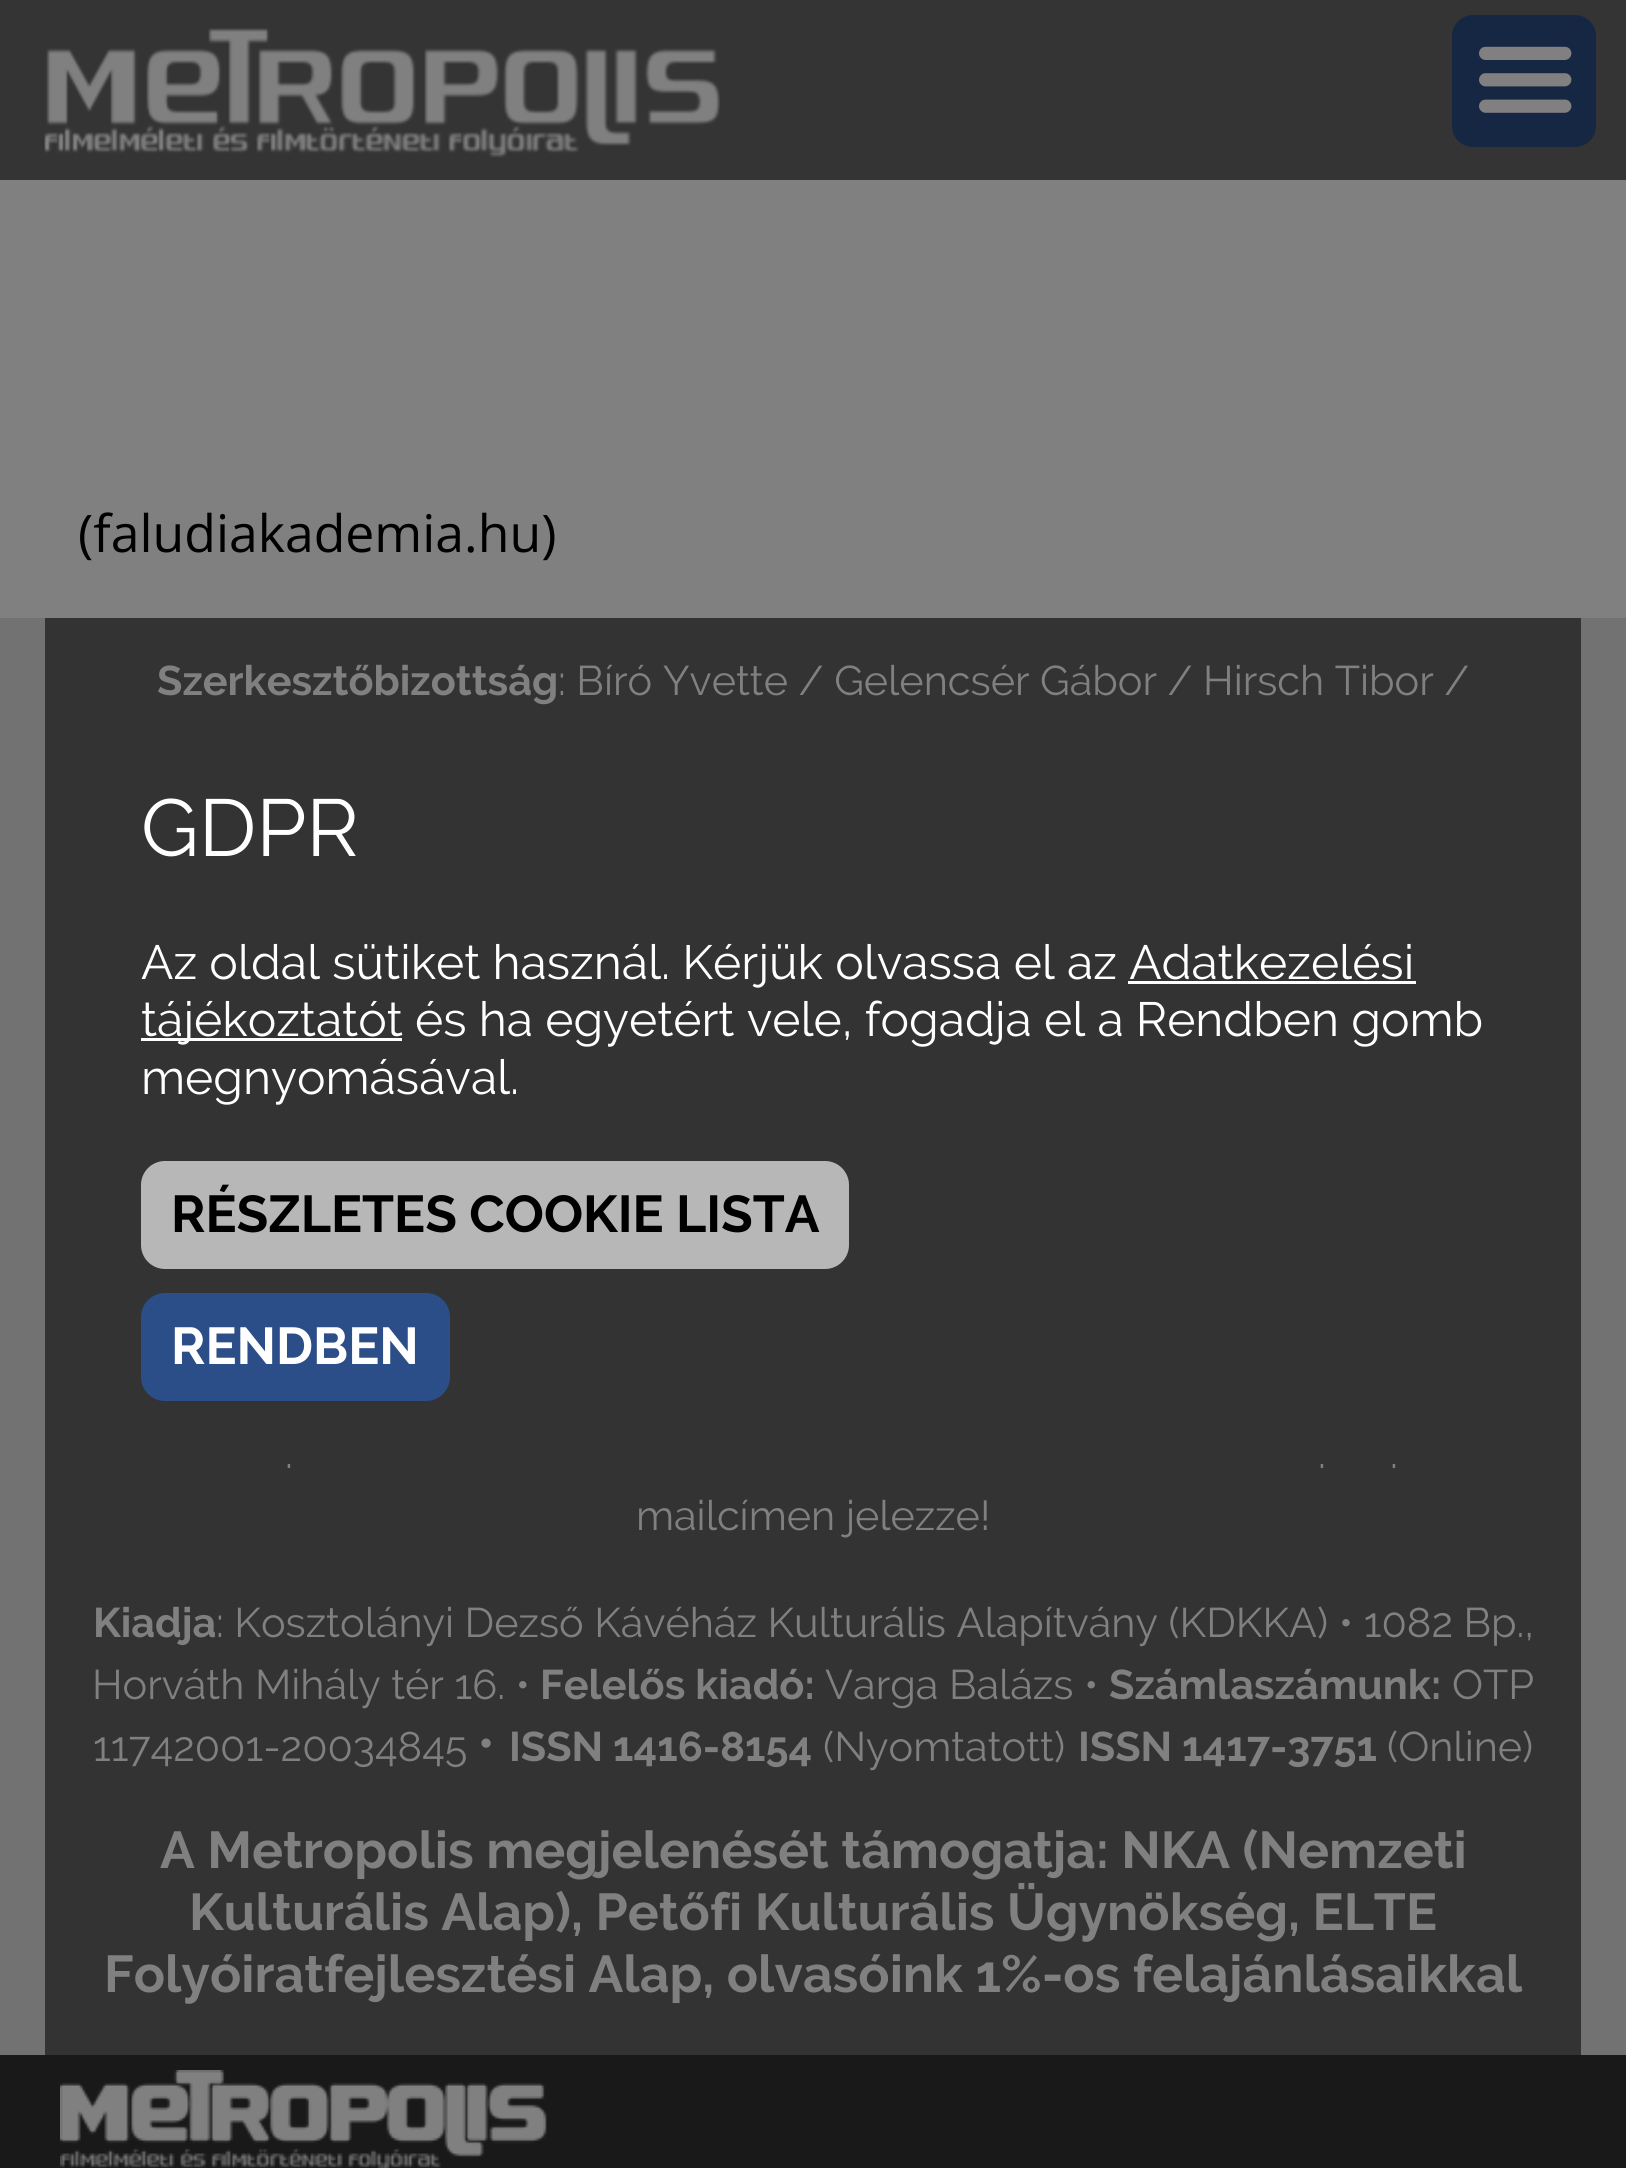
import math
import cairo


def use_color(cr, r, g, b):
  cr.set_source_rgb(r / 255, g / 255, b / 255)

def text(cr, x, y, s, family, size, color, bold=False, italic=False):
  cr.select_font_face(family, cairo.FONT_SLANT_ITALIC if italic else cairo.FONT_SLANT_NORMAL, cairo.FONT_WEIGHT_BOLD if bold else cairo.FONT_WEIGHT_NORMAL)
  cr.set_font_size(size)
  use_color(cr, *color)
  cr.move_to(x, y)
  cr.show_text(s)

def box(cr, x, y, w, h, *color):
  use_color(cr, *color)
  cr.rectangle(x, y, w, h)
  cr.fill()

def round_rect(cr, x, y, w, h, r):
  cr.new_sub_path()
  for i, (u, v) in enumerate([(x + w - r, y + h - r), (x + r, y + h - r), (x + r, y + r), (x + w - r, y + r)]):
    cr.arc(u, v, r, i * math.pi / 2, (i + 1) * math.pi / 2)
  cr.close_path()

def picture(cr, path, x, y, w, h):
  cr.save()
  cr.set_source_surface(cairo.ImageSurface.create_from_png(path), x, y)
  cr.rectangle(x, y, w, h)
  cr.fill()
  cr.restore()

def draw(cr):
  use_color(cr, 114, 114, 114)
  cr.paint()
  box(cr, 0, 0, 1626, 180, 52, 52, 52)
  picture(cr, "img_01.png", 44, 28, 676, 130)
  use_color(cr, 22, 39, 68)
  round_rect(cr, 1452, 15, 144, 132, 21)
  cr.fill()
  picture(cr, "img_02.png", 1479, 46, 93, 67)
  box(cr, 0, 180, 1626, 438, 128, 128, 128)
  box(cr, 45, 618, 1536, 1437, 51, 51, 51)
  box(cr, 1128, 981, 288, 3, 255, 255, 255)
  box(cr, 141, 1038, 261, 3, 255, 255, 255)
  use_color(cr, 183, 183, 183)
  round_rect(cr, 141, 1161, 708, 108, 24)
  cr.fill()
  use_color(cr, 44, 78, 136)
  round_rect(cr, 141, 1293, 309, 108, 24)
  cr.fill()
  box(cr, 0, 2055, 1626, 113, 25, 25, 25)
  picture(cr, "img_03.png", 60, 2070, 487, 98)
  text(cr, 78, 552, "(faludiakademia.hu)", "Open Sans", 51.75, (0, 0, 0))
  text(cr, 157, 695, "Szerkesztőbizottság", "Raleway", 41.4, (128, 128, 128), bold=True)
  text(cr, 558, 695, ": Bíró Yvette / Gelencsér Gábor / Hirsch Tibor /", "Raleway", 41.4, (128, 128, 128))
  text(cr, 285, 1468, ".", "Raleway", 41.4, (128, 128, 128))
  text(cr, 1318, 1468, ".", "Raleway", 41.4, (128, 128, 128))
  text(cr, 1390, 1468, ".", "Raleway", 41.4, (128, 128, 128))
  text(cr, 636, 1530, "mailcímen jelezze!", "Raleway", 41.4, (128, 128, 128))
  text(cr, 93, 1637, "Kiadja", "Raleway", 41.4, (128, 128, 128), bold=True)
  text(cr, 216, 1637, ": Kosztolányi Dezső Kávéház Kulturális Alapítvány (KDKKA) • 1082 Bp.,", "Raleway", 41.4, (128, 128, 128))
  text(cr, 92, 1699, "Horváth Mihály tér 16. •", "Raleway", 41.4, (128, 128, 128))
  text(cr, 540, 1699, "Felelős kiadó:", "Raleway", 41.4, (128, 128, 128), bold=True)
  text(cr, 825, 1699, "Varga Balázs •", "Raleway", 41.4, (128, 128, 128))
  text(cr, 1109, 1699, "Számlaszámunk:", "Raleway", 41.4, (128, 128, 128), bold=True)
  text(cr, 1452, 1699, "OTP", "Raleway", 41.4, (128, 128, 128))
  text(cr, 93, 1761, "11742001-20034845", "Raleway", 41.4, (128, 128, 128))
  text(cr, 477, 1761, "•", "Raleway", 51.75, (128, 128, 128))
  text(cr, 509, 1761, "ISSN 1416-8154", "Raleway", 41.4, (128, 128, 128), bold=True)
  text(cr, 823, 1761, "(Nyomtatott)", "Raleway", 41.4, (128, 128, 128))
  text(cr, 1078, 1761, "ISSN 1417-3751", "Raleway", 41.4, (128, 128, 128), bold=True)
  text(cr, 1387, 1761, "(Online)", "Raleway", 41.4, (128, 128, 128))
  text(cr, 160, 1868, "A Metropolis megjelenését támogatja: NKA (Nemzeti", "Raleway", 51.75, (128, 128, 128), bold=True)
  text(cr, 189, 1930, "Kulturális Alap), Petőfi Kulturális Ügynökség, ELTE", "Raleway", 51.75, (128, 128, 128), bold=True)
  text(cr, 104, 1992, "Folyóiratfejlesztési Alap, olvasóink 1%-os felajánlásaikkal", "Raleway", 51.75, (128, 128, 128), bold=True)
  text(cr, 141, 856, "GDPR", "Raleway", 80.5, (255, 255, 255))
  text(cr, 141, 979, "Az oldal sütiket használ. Kérjük olvassa el az Adatkezelési", "Raleway", 48, (255, 255, 255))
  text(cr, 141, 1036, "tájékoztatót és ha egyetért vele, fogadja el a Rendben gomb", "Raleway", 48, (255, 255, 255))
  text(cr, 141, 1094, "megnyomásával.", "Raleway", 48, (255, 255, 255))
  text(cr, 171, 1232, "RÉSZLETES COOKIE LISTA", "Raleway", 51.75, (0, 0, 0), bold=True)
  text(cr, 171, 1364, "RENDBEN", "Raleway", 51.75, (255, 255, 255), bold=True)


surface = cairo.ImageSurface(cairo.FORMAT_RGB24, 1626, 2168)
cr = cairo.Context(surface)
options = cairo.FontOptions()
options.set_hint_metrics(cairo.HINT_METRICS_OFF)
options.set_hint_style(cairo.HINT_STYLE_NONE)
cr.set_font_options(options)
cr.set_miter_limit(4)
draw(cr)
surface.write_to_png("out.png")
